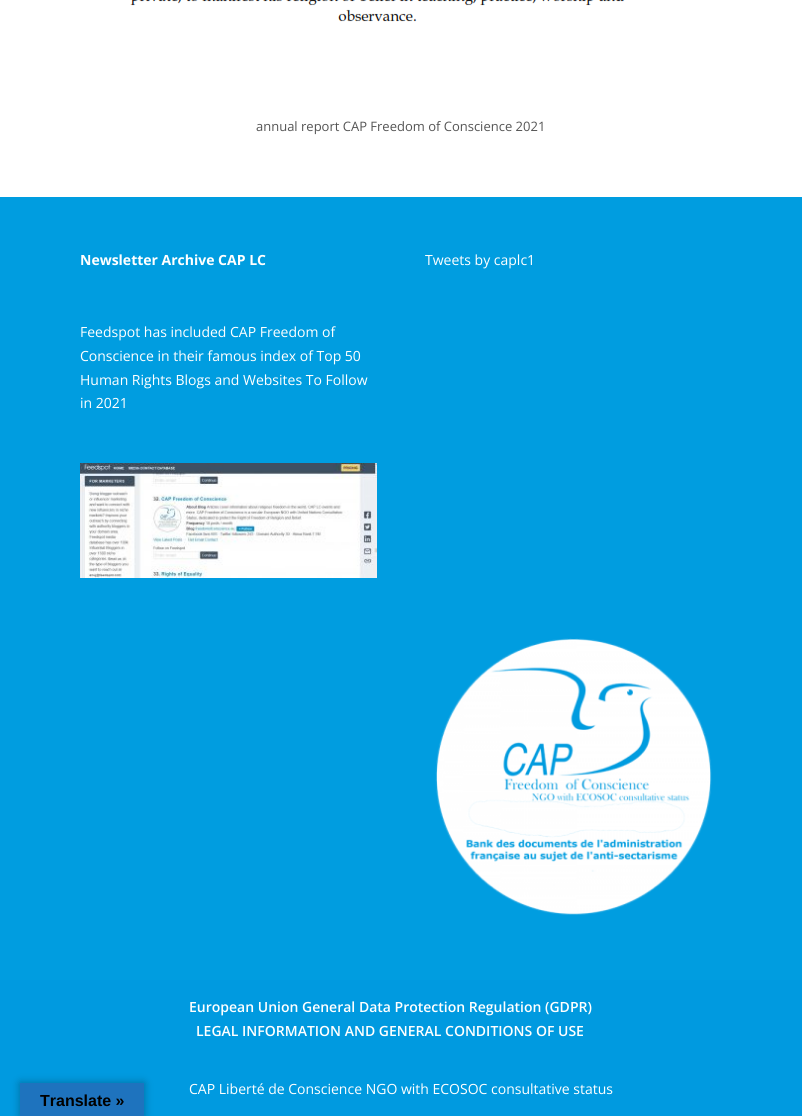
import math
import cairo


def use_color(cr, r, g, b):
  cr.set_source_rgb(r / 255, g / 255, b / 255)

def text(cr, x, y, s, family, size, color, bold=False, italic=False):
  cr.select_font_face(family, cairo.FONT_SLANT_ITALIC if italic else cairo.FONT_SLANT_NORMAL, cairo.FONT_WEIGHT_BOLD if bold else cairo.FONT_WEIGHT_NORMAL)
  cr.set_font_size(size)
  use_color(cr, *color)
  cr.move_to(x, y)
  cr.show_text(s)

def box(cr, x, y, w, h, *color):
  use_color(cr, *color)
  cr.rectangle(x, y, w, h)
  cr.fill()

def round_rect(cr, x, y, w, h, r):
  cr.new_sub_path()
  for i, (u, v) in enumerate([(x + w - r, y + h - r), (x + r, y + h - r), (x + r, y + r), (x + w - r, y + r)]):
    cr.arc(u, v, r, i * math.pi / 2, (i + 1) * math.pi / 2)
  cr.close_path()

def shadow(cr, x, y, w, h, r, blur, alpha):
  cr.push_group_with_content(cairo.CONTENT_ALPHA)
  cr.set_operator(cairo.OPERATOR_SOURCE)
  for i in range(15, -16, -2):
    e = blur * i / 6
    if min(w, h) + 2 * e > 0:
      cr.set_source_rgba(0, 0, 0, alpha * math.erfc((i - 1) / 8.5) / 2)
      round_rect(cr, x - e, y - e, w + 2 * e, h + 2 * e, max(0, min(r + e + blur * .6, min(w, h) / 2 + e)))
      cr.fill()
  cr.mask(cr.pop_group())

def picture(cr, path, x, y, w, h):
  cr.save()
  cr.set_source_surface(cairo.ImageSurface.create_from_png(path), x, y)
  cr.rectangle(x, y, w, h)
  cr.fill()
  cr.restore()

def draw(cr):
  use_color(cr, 255, 255, 255)
  cr.paint()
  picture(cr, "img_01.png", 130, 0, 495, 22)
  box(cr, 0, 197, 802, 783, 0, 157, 224)
  picture(cr, "img_02.png", 80, 463, 297, 115)
  picture(cr, "img_03.png", 435, 638, 277, 277)
  box(cr, 0, 980, 802, 136, 0, 154, 224)
  use_color(cr, 0, 0, 0)
  shadow(cr, 20, 1083, 124, 33, 0, 4.5, 0.3)
  box(cr, 20, 1083, 124, 33, 30, 115, 190)
  text(cr, 256, 131, "annual report CAP Freedom of Conscience 2021", "Open Sans", 13, (85, 85, 85))
  text(cr, 80, 265, "Newsletter Archive CAP LC", "Open Sans", 14, (255, 255, 255), bold=True)
  text(cr, 80, 337, "Feedspot has included CAP Freedom of", "Open Sans", 14, (255, 255, 255))
  text(cr, 80, 361, "Conscience in their famous index of Top 50", "Open Sans", 14, (255, 255, 255))
  text(cr, 80, 385, "Human Rights Blogs and Websites To Follow", "Open Sans", 14, (255, 255, 255))
  text(cr, 80, 408, "in 2021", "Open Sans", 14, (255, 255, 255))
  text(cr, 425, 265, "Tweets by caplc1", "Open Sans", 14, (255, 255, 255))
  text(cr, 189, 1012, "European Union General Data Protection Regulation (GDPR)", "Open Sans SemiBold", 14, (255, 255, 255))
  text(cr, 196, 1036, "LEGAL INFORMATION AND GENERAL CONDITIONS OF USE", "Open Sans SemiBold", 14, (255, 255, 255))
  text(cr, 189, 1094, "CAP Liberté de Conscience NGO with ECOSOC consultative status", "Open Sans", 14, (255, 255, 255))
  text(cr, 40, 1106, "Translate »", "Liberation Sans", 16, (0, 0, 0), bold=True)


surface = cairo.ImageSurface(cairo.FORMAT_RGB24, 802, 1116)
cr = cairo.Context(surface)
options = cairo.FontOptions()
options.set_hint_metrics(cairo.HINT_METRICS_OFF)
options.set_hint_style(cairo.HINT_STYLE_NONE)
cr.set_font_options(options)
cr.set_miter_limit(4)
draw(cr)
surface.write_to_png("out.png")
